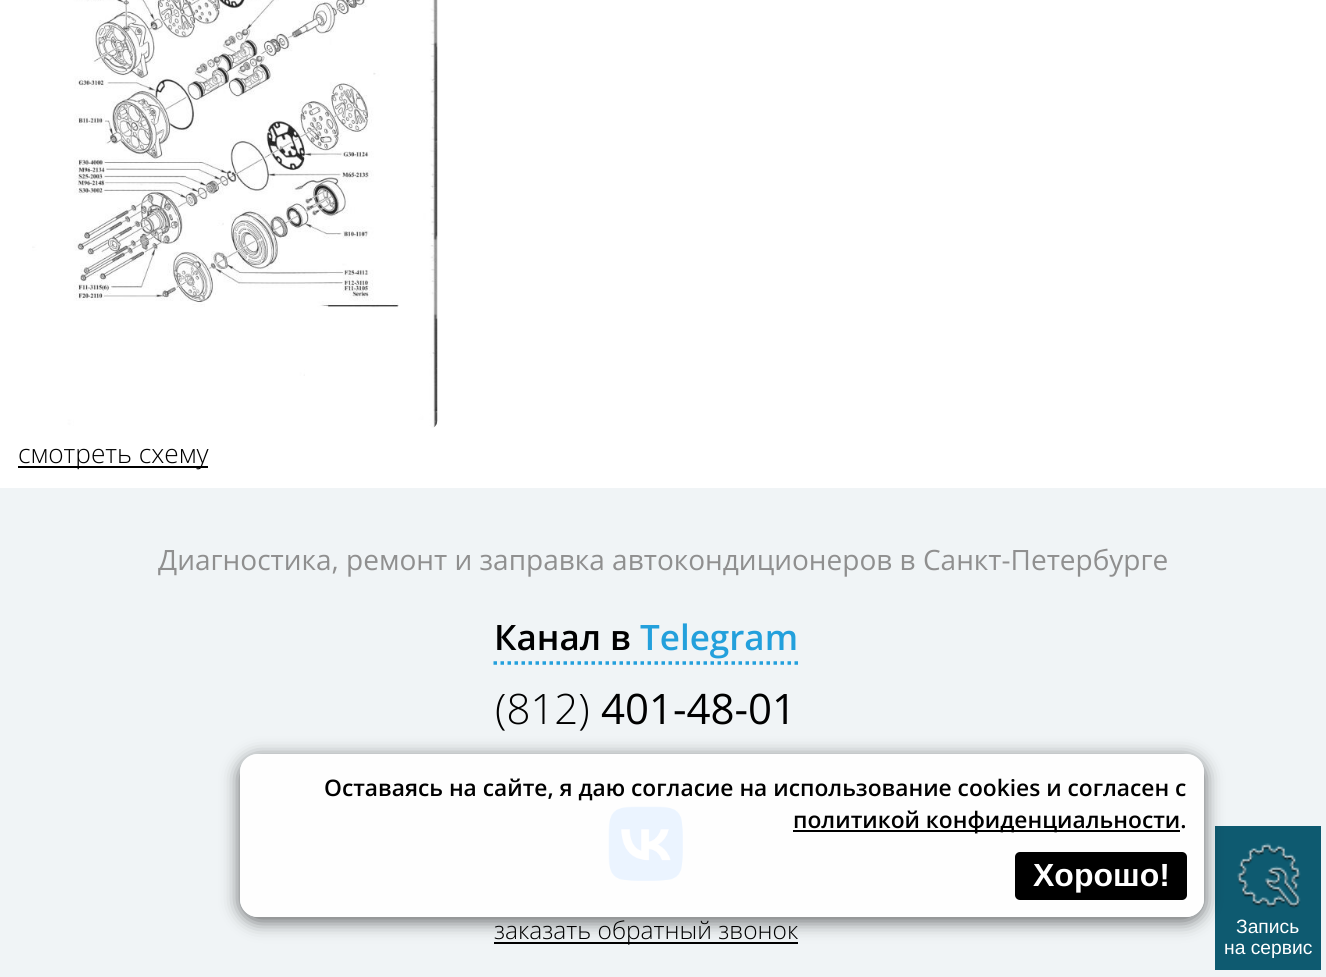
import math
import cairo


def use_color(cr, r, g, b):
  cr.set_source_rgb(r / 255, g / 255, b / 255)

def text(cr, x, y, s, family, size, color, bold=False, italic=False):
  cr.select_font_face(family, cairo.FONT_SLANT_ITALIC if italic else cairo.FONT_SLANT_NORMAL, cairo.FONT_WEIGHT_BOLD if bold else cairo.FONT_WEIGHT_NORMAL)
  cr.set_font_size(size)
  use_color(cr, *color)
  cr.move_to(x, y)
  cr.show_text(s)

def box(cr, x, y, w, h, *color):
  use_color(cr, *color)
  cr.rectangle(x, y, w, h)
  cr.fill()

def round_rect(cr, x, y, w, h, r):
  cr.new_sub_path()
  for i, (u, v) in enumerate([(x + w - r, y + h - r), (x + r, y + h - r), (x + r, y + r), (x + w - r, y + r)]):
    cr.arc(u, v, r, i * math.pi / 2, (i + 1) * math.pi / 2)
  cr.close_path()

def shadow(cr, x, y, w, h, r, blur, alpha):
  cr.push_group_with_content(cairo.CONTENT_ALPHA)
  cr.set_operator(cairo.OPERATOR_SOURCE)
  for i in range(15, -16, -2):
    e = blur * i / 6
    if min(w, h) + 2 * e > 0:
      cr.set_source_rgba(0, 0, 0, alpha * math.erfc((i - 1) / 8.5) / 2)
      round_rect(cr, x - e, y - e, w + 2 * e, h + 2 * e, max(0, min(r + e + blur * .6, min(w, h) / 2 + e)))
      cr.fill()
  cr.mask(cr.pop_group())

def picture(cr, path, x, y, w, h):
  cr.save()
  cr.set_source_surface(cairo.ImageSurface.create_from_png(path), x, y)
  cr.rectangle(x, y, w, h)
  cr.fill()
  cr.restore()

def draw(cr):
  use_color(cr, 240, 244, 246)
  cr.paint()
  box(cr, 0, 0, 1326, 488, 255, 255, 255)
  picture(cr, "img_01.png", 32, 0, 406, 428)
  box(cr, 18, 466, 190, 2, 0, 0, 0)
  cr.new_path()
  cr.move_to(493.5, 663)
  cr.line_to(640.5, 663)
  use_color(cr, 35, 160, 220)
  cr.set_line_width(3.5)
  cr.set_dash([3.5, 3.5])
  cr.stroke()
  cr.new_path()
  cr.move_to(640.5, 663)
  cr.line_to(798, 663)
  cr.stroke()
  picture(cr, "img_02.png", 608, 806, 75, 75)
  box(cr, 494, 942, 304, 2, 0, 0, 0)
  box(cr, 1215, 826, 106, 144, 14, 90, 112)
  picture(cr, "img_03.png", 1237, 843, 64, 66)
  cr.save()
  cr.set_fill_rule(cairo.FILL_RULE_EVEN_ODD)
  cr.new_path()
  cr.move_to(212, 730)
  cr.line_to(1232, 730)
  cr.line_to(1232, 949)
  cr.line_to(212, 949)
  cr.close_path()
  cr.move_to(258, 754)
  cr.line_to(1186, 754)
  cr.curve_to(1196, 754, 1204, 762, 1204, 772)
  cr.line_to(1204, 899)
  cr.curve_to(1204, 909, 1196, 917, 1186, 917)
  cr.line_to(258, 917)
  cr.curve_to(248, 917, 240, 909, 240, 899)
  cr.line_to(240, 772)
  cr.curve_to(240, 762, 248, 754, 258, 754)
  cr.close_path()
  cr.clip()
  use_color(cr, 0, 0, 0)
  shadow(cr, 240, 758, 964, 163, 18, 9, 0.6)
  cr.restore()
  cr.set_source_rgba(1, 1, 1, 0.9)
  round_rect(cr, 240, 754, 964, 163, 18)
  cr.fill()
  box(cr, 793, 830, 387, 2, 0, 0, 0)
  round_rect(cr, 1015, 852, 172, 48, 5)
  cr.fill()
  text(cr, 18, 463, "смотреть схему", "Open Sans Light", 26.25, (0, 0, 0))
  text(cr, 158, 570, "Диагностика, ремонт и заправка автокондиционеров в Санкт-Петербурге", "Open Sans", 28, (143, 143, 143))
  text(cr, 494, 650, "Канал в", "Open Sans SemiBold", 35, (0, 0, 0))
  text(cr, 640, 650, "Telegram", "Open Sans SemiBold", 35, (35, 160, 220))
  text(cr, 495, 724, "(812)", "Open Sans Light", 42, (0, 0, 0))
  text(cr, 601, 724, "401-48-01", "Open Sans", 42, (0, 0, 0))
  text(cr, 494, 939, "заказать обратный звонок", "Open Sans Light", 24.5, (0, 0, 0))
  text(cr, 1236, 933, "Запись", "Liberation Sans", 19.25, (255, 255, 255))
  text(cr, 1224, 954, "на сервис", "Liberation Sans", 19.25, (255, 255, 255))
  text(cr, 324, 796, "Оставаясь на сайте, я даю согласие на использование cookies и согласен с", "Open Sans SemiBold", 22.75, (0, 0, 0))
  text(cr, 793, 828, "политикой конфиденциальности.", "Open Sans SemiBold", 22.75, (0, 0, 0))
  text(cr, 1033, 886, "Хорошо!", "Liberation Sans", 32, (255, 255, 255), bold=True)


surface = cairo.ImageSurface(cairo.FORMAT_RGB24, 1326, 977)
cr = cairo.Context(surface)
options = cairo.FontOptions()
options.set_hint_metrics(cairo.HINT_METRICS_OFF)
options.set_hint_style(cairo.HINT_STYLE_NONE)
cr.set_font_options(options)
cr.set_miter_limit(4)
draw(cr)
surface.write_to_png("out.png")
